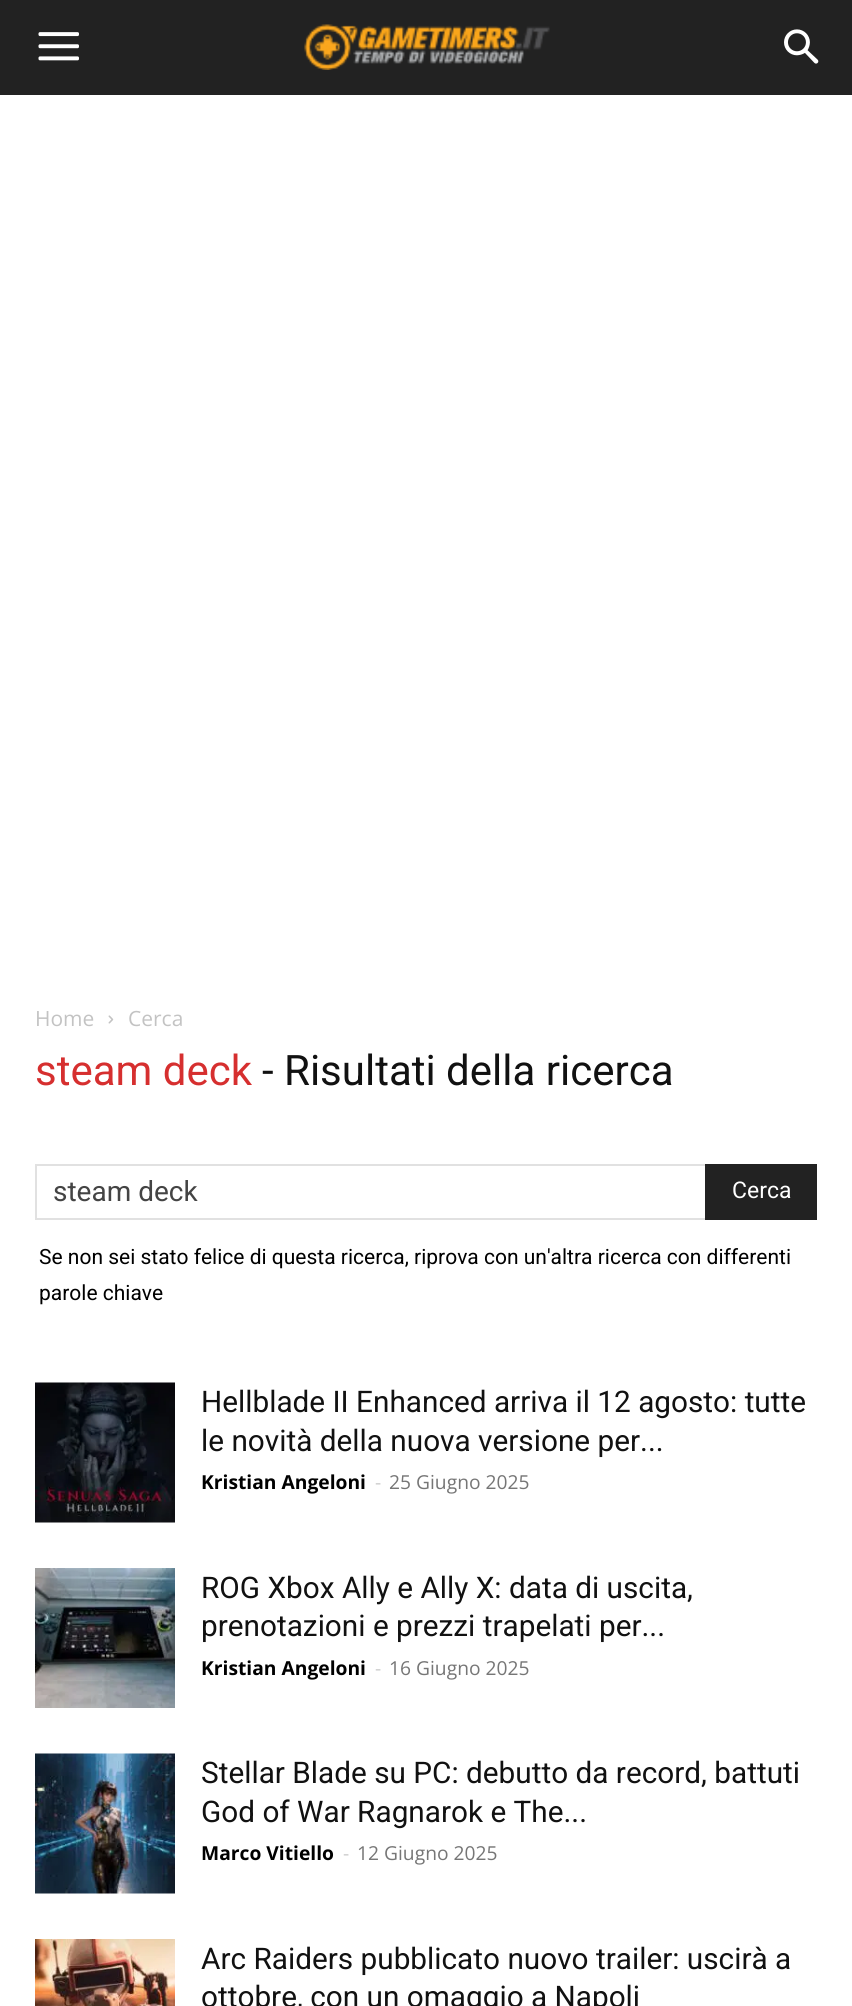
import math
import cairo


def use_color(cr, r, g, b):
  cr.set_source_rgb(r / 255, g / 255, b / 255)

def text(cr, x, y, s, family, size, color, bold=False, italic=False):
  cr.select_font_face(family, cairo.FONT_SLANT_ITALIC if italic else cairo.FONT_SLANT_NORMAL, cairo.FONT_WEIGHT_BOLD if bold else cairo.FONT_WEIGHT_NORMAL)
  cr.set_font_size(size)
  use_color(cr, *color)
  cr.move_to(x, y)
  cr.show_text(s)

def box(cr, x, y, w, h, *color):
  use_color(cr, *color)
  cr.rectangle(x, y, w, h)
  cr.fill()

def picture(cr, path, x, y, w, h):
  cr.save()
  cr.set_source_surface(cairo.ImageSurface.create_from_png(path), x, y)
  cr.rectangle(x, y, w, h)
  cr.fill()
  cr.restore()

def draw(cr):
  use_color(cr, 255, 255, 255)
  cr.paint()
  box(cr, 0, 0, 852, 95, 34, 34, 34)
  picture(cr, "img_01.png", 38, 32, 41, 29)
  picture(cr, "img_02.png", 304, 24, 246, 46)
  picture(cr, "img_03.png", 784, 29, 35, 35)
  picture(cr, "img_04.png", 108, 1015, 6, 9)
  box(cr, 35, 1164, 670, 2, 225, 225, 225)
  box(cr, 35, 1218, 670, 2, 225, 225, 225)
  box(cr, 35, 1164, 2, 56, 225, 225, 225)
  box(cr, 705, 1164, 112, 56, 34, 34, 34)
  picture(cr, "img_05.png", 35, 1382, 140, 141)
  picture(cr, "img_06.png", 35, 1568, 140, 140)
  picture(cr, "img_07.png", 35, 1753, 140, 141)
  picture(cr, "img_08.png", 35, 1939, 140, 67)
  text(cr, 35, 1026, "Home", "Open Sans", 21, (195, 195, 195))
  text(cr, 128, 1026, "Cerca", "Open Sans", 21, (195, 195, 195))
  text(cr, 35, 1085, "steam deck", "Roboto", 42, (214, 47, 47))
  text(cr, 262, 1085, "- Risultati della ricerca", "Roboto", 42, (17, 17, 17))
  text(cr, 53, 1201, "steam deck", "Roboto", 28, (68, 68, 68))
  text(cr, 732, 1198, "Cerca", "Roboto", 23, (255, 255, 255))
  text(cr, 39, 1264, "Se non sei stato felice di questa ricerca, riprova con un'altra ricerca con differenti", "Roboto", 21, (0, 0, 0))
  text(cr, 39, 1300, "parole chiave", "Roboto", 21, (0, 0, 0))
  text(cr, 201, 1412, "Hellblade II Enhanced arriva il 12 agosto: tutte", "Roboto", 29.75, (17, 17, 17))
  text(cr, 201, 1451, "le novità della nuova versione per...", "Roboto", 29.75, (17, 17, 17))
  text(cr, 201, 1489, "Kristian Angeloni", "Open Sans", 19.25, (0, 0, 0), bold=True)
  text(cr, 375, 1489, "-", "Open Sans", 19.25, (204, 204, 204))
  text(cr, 389, 1489, "25 Giugno 2025", "Open Sans", 19.25, (118, 118, 118))
  text(cr, 201, 1598, "ROG Xbox Ally e Ally X: data di uscita,", "Roboto", 29.75, (17, 17, 17))
  text(cr, 201, 1636, "prenotazioni e prezzi trapelati per...", "Roboto", 29.75, (17, 17, 17))
  text(cr, 201, 1675, "Kristian Angeloni", "Open Sans", 19.25, (0, 0, 0), bold=True)
  text(cr, 375, 1675, "-", "Open Sans", 19.25, (204, 204, 204))
  text(cr, 389, 1675, "16 Giugno 2025", "Open Sans", 19.25, (118, 118, 118))
  text(cr, 201, 1783, "Stellar Blade su PC: debutto da record, battuti", "Roboto", 29.75, (17, 17, 17))
  text(cr, 201, 1822, "God of War Ragnarok e The...", "Roboto", 29.75, (17, 17, 17))
  text(cr, 201, 1860, "Marco Vitiello", "Open Sans", 19.25, (0, 0, 0), bold=True)
  text(cr, 343, 1860, "-", "Open Sans", 19.25, (204, 204, 204))
  text(cr, 357, 1860, "12 Giugno 2025", "Open Sans", 19.25, (118, 118, 118))
  text(cr, 201, 1969, "Arc Raiders pubblicato nuovo trailer: uscirà a", "Roboto", 29.75, (17, 17, 17))
  text(cr, 201, 2007, "ottobre, con un omaggio a Napoli", "Roboto", 29.75, (17, 17, 17))


surface = cairo.ImageSurface(cairo.FORMAT_RGB24, 852, 2006)
cr = cairo.Context(surface)
options = cairo.FontOptions()
options.set_hint_metrics(cairo.HINT_METRICS_OFF)
options.set_hint_style(cairo.HINT_STYLE_NONE)
cr.set_font_options(options)
cr.set_miter_limit(4)
draw(cr)
surface.write_to_png("out.png")
